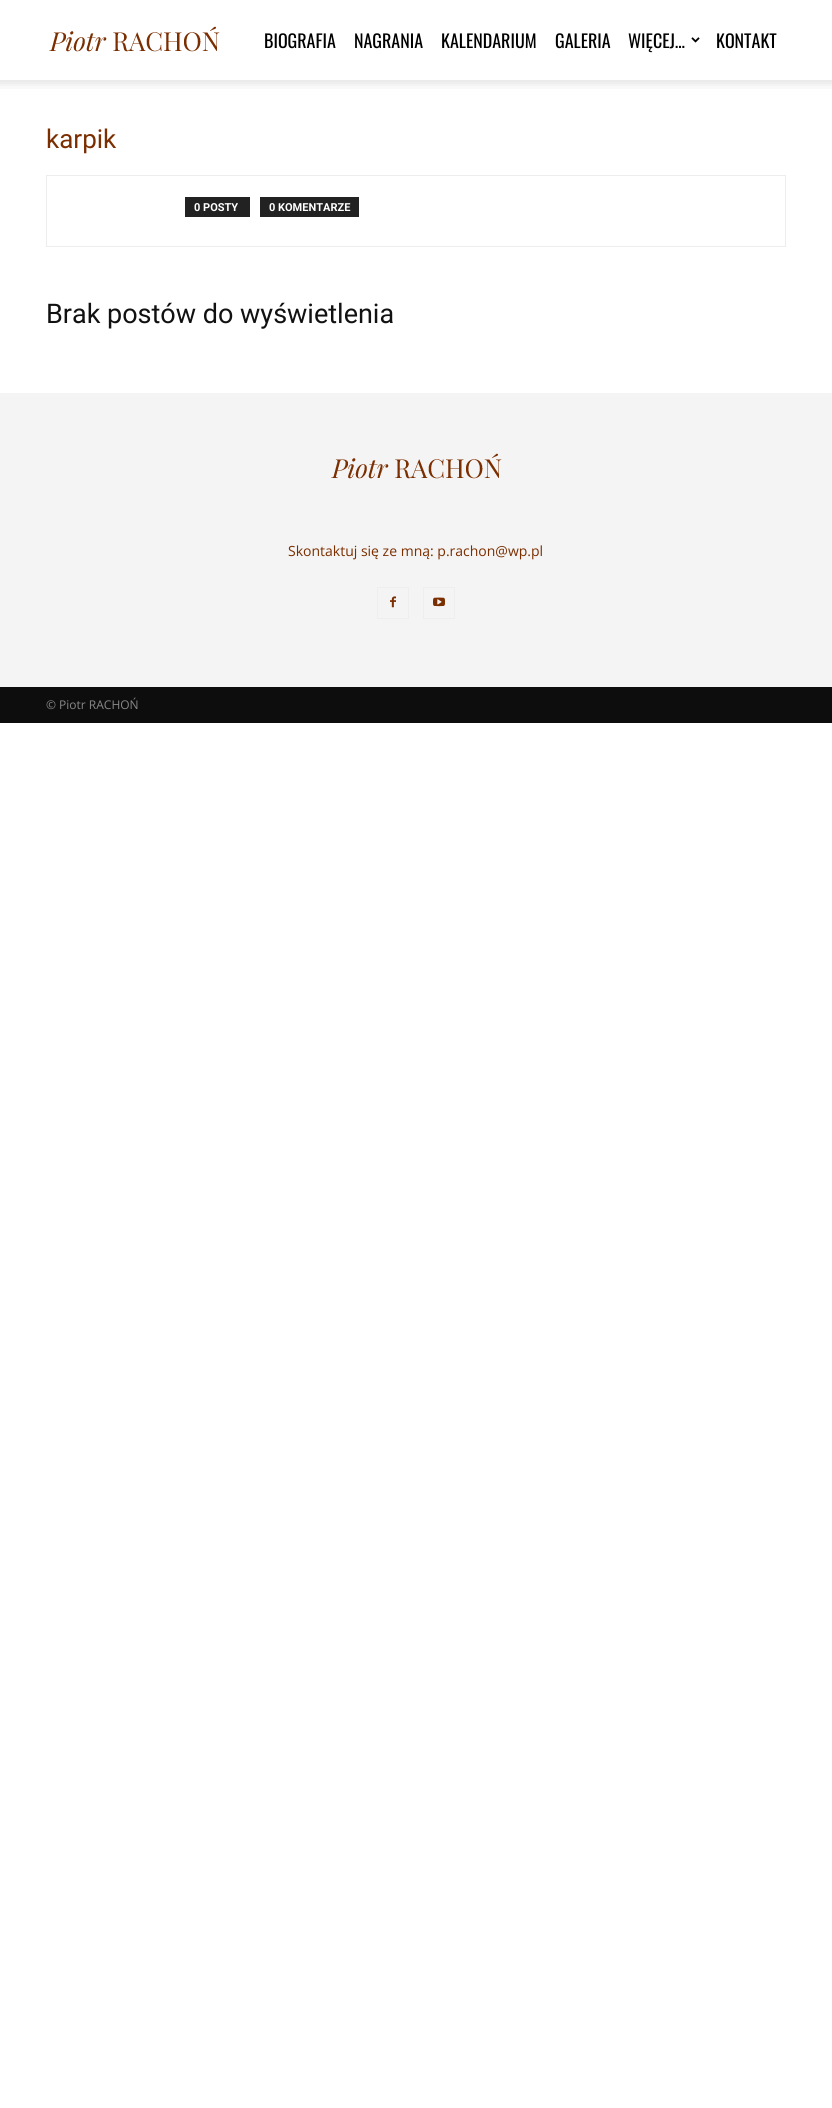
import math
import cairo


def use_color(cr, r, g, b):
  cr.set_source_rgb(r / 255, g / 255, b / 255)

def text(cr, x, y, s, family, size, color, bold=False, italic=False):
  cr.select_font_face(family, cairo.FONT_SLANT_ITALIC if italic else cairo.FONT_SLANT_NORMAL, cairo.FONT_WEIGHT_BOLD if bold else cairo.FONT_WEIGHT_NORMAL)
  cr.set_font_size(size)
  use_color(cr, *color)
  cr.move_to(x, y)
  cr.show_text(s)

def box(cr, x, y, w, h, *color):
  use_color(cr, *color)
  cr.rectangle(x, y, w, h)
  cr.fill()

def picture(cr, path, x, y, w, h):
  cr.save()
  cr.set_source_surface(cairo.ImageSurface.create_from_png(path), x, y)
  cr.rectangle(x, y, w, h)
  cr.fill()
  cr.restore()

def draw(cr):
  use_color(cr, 255, 255, 255)
  cr.paint()
  picture(cr, "img_01.png", 49, 26, 171, 26)
  picture(cr, "img_02.png", 691, 37, 9, 6)
  picture(cr, "img_03.png", 0, 80, 832, 9)
  cr.rectangle(46.5, 175.5, 739, 71)
  use_color(cr, 237, 237, 237)
  cr.set_line_width(1)
  cr.stroke()
  box(cr, 185, 197, 65, 20, 34, 34, 34)
  box(cr, 260, 197, 99, 20, 34, 34, 34)
  box(cr, 0, 393, 832, 294, 244, 244, 244)
  picture(cr, "img_04.png", 331, 453, 171, 26)
  picture(cr, "img_05.png", 390, 596, 6, 12)
  cr.rectangle(377.5, 587.5, 31, 31)
  use_color(cr, 240, 238, 237)
  cr.stroke()
  picture(cr, "img_06.png", 433, 597, 12, 10)
  cr.rectangle(423.5, 587.5, 31, 31)
  cr.stroke()
  box(cr, 0, 687, 832, 36, 13, 13, 13)
  text(cr, 264, 48, "BIOGRAFIA", "Oswald", 18, (0, 0, 0))
  text(cr, 354, 48, "NAGRANIA", "Oswald", 18, (0, 0, 0))
  text(cr, 441, 48, "KALENDARIUM", "Oswald", 18, (0, 0, 0))
  text(cr, 555, 48, "GALERIA", "Oswald", 18, (0, 0, 0))
  text(cr, 628, 48, "WIĘCEJ…", "Oswald", 18, (0, 0, 0))
  text(cr, 716, 48, "KONTAKT", "Oswald", 18, (0, 0, 0))
  text(cr, 46, 148, "karpik", "Roboto", 26, (123, 46, 0))
  text(cr, 194, 211, "0 POSTY", "Roboto", 11, (255, 255, 255), bold=True)
  text(cr, 269, 211, "0 KOMENTARZE", "Roboto", 11, (255, 255, 255), bold=True)
  text(cr, 46, 323, "Brak postów do wyświetlenia", "Roboto", 27, (17, 17, 17))
  text(cr, 288, 556, "Skontaktuj się ze mną: p.rachon@wp.pl", "Open Sans", 14, (123, 46, 0))
  text(cr, 46, 709, "© Piotr RACHOŃ", "Open Sans", 12, (136, 136, 136))


surface = cairo.ImageSurface(cairo.FORMAT_RGB24, 832, 2108)
cr = cairo.Context(surface)
options = cairo.FontOptions()
options.set_hint_metrics(cairo.HINT_METRICS_OFF)
options.set_hint_style(cairo.HINT_STYLE_NONE)
cr.set_font_options(options)
cr.set_miter_limit(4)
draw(cr)
surface.write_to_png("out.png")
